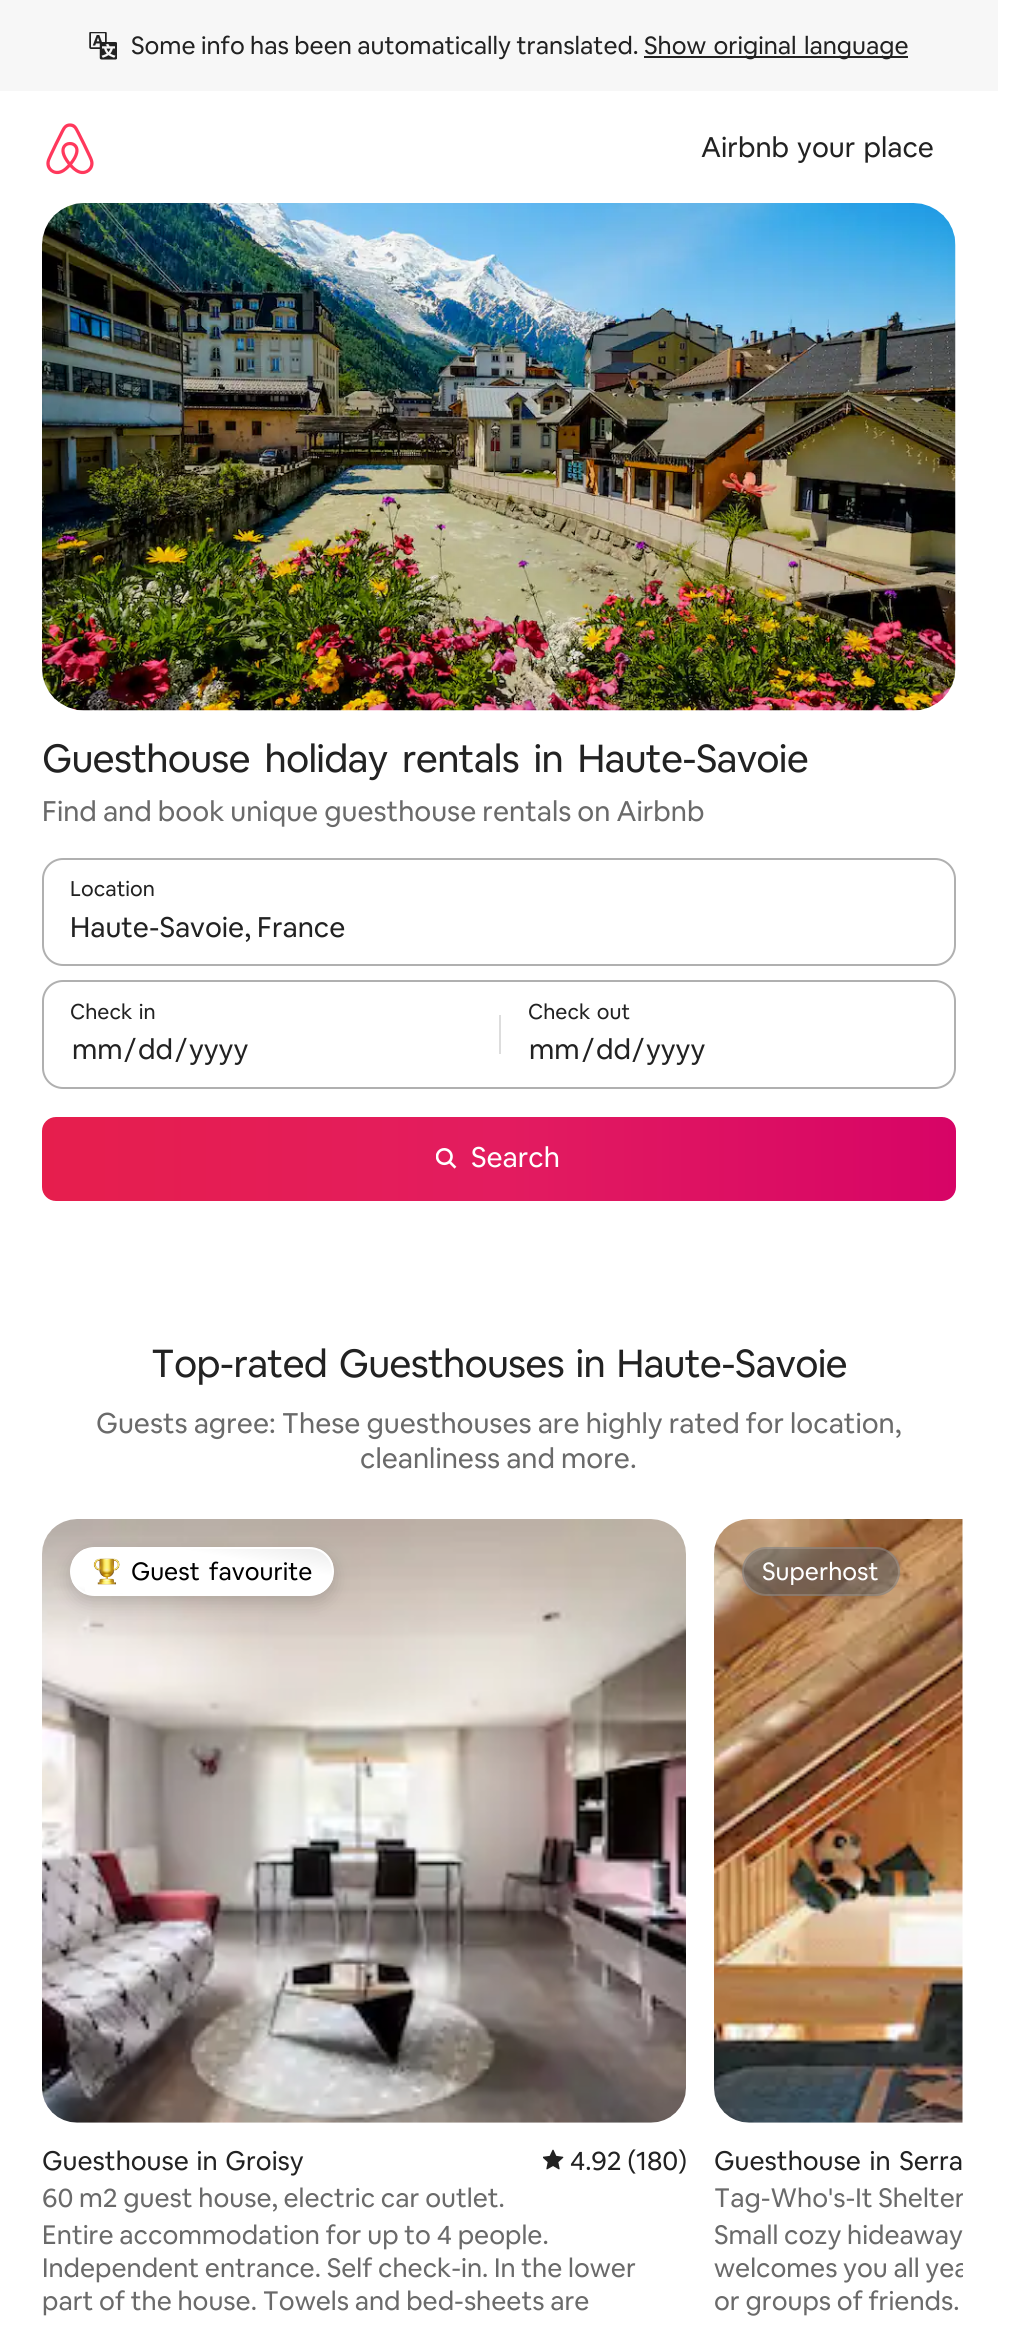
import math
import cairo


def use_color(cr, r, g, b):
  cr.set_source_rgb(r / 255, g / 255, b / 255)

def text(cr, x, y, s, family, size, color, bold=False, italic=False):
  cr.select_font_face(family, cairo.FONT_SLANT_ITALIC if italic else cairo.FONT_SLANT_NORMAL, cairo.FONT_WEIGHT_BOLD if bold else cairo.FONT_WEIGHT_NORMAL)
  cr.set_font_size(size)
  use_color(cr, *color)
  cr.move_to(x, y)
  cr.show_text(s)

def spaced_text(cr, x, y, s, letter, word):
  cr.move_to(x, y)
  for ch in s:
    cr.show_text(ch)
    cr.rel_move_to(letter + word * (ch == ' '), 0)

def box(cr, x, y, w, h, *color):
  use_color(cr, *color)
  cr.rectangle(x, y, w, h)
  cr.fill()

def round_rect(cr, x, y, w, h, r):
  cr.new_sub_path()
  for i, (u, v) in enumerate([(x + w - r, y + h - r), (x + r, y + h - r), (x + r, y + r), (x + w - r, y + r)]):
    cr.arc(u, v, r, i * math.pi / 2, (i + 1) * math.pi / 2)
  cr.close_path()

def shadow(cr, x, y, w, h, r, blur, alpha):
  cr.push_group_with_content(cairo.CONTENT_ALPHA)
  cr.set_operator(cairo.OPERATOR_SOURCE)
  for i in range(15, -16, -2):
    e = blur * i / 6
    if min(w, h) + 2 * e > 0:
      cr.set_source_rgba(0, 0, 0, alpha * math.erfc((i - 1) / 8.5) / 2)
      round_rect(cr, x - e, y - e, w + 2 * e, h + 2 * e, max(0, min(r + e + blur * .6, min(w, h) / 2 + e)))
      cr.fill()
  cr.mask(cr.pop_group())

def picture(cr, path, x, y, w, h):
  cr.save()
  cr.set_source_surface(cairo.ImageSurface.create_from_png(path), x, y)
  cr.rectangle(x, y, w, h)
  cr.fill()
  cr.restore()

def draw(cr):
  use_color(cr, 255, 255, 255)
  cr.paint()
  box(cr, 0, 0, 998, 91, 247, 247, 247)
  picture(cr, "img_01.png", 89, 32, 28, 28)
  box(cr, 644, 56, 264, 2, 34, 34, 34)
  picture(cr, "img_02.png", 46, 123, 48, 52)
  picture(cr, "img_03.png", 42, 203, 914, 508)
  round_rect(cr, 43, 859, 912, 106, 20)
  use_color(cr, 176, 176, 176)
  cr.stroke()
  round_rect(cr, 43, 981, 912, 107, 20)
  cr.stroke()
  box(cr, 499, 1015, 2, 39, 221, 221, 221)
  gradient = cairo.LinearGradient(42, 1159, 956, 1159)
  gradient.add_color_stop_rgba(0, 0.902, 0.118, 0.302, 1)
  gradient.add_color_stop_rgba(0.5, 0.89, 0.11, 0.373, 1)
  gradient.add_color_stop_rgba(1, 0.843, 0.016, 0.4, 1)
  cr.set_source(gradient)
  round_rect(cr, 42, 1117, 914, 84, 14)
  cr.fill()
  picture(cr, "img_04.png", 436, 1148, 21, 21)
  picture(cr, "img_05.png", 42, 1519, 644, 604)
  use_color(cr, 0, 0, 0)
  shadow(cr, 70, 1554, 264, 49, 24.5, 9, 0.16)
  cr.save()
  round_rect(cr, 70, 1547, 264, 49, 24.5)
  cr.clip()
  gradient = cairo.LinearGradient(194, 1616, 210, 1527)
  gradient.add_color_stop_rgba(0, 0.945, 0.945, 0.945, 1)
  gradient.add_color_stop_rgba(0.11, 1, 1, 1, 1)
  gradient.add_color_stop_rgba(0.7, 1, 1, 1, 1)
  gradient.add_color_stop_rgba(0.94, 0.937, 0.937, 0.937, 1)
  cr.set_source(gradient)
  cr.rectangle(72, 1549, 261, 45)
  cr.fill()
  cr.restore()
  round_rect(cr, 71, 1548, 262, 47, 23.5)
  use_color(cr, 255, 255, 255)
  cr.stroke()
  picture(cr, "img_06.png", 85, 1558, 35, 36)
  picture(cr, "img_07.png", 543, 2149, 21, 21)
  picture(cr, "img_08.png", 714, 1519, 249, 604)
  cr.set_source_rgba(0.376, 0.376, 0.376, 0.6)
  round_rect(cr, 742, 1547, 158, 49, 24.5)
  cr.fill()
  round_rect(cr, 743, 1548, 156, 47, 23.5)
  cr.set_source_rgba(1, 1, 1, 0.16)
  cr.stroke()
  text(cr, 131, 54, "Some info has been automatically translated.", "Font", 24.5, (34, 34, 34))
  spaced_text(cr, 644, 54, "Show original language", 0, 2)
  cr.set_font_size(28)
  spaced_text(cr, 701, 157, "Airbnb your place", 0, 2)
  cr.set_font_size(38.5)
  spaced_text(cr, 42, 772, "Guesthouse holiday rentals in Haute-Savoie", -0.75, 7)
  text(cr, 42, 821, "Find and book unique guesthouse rentals on Airbnb", "Font", 28, (106, 106, 106))
  text(cr, 70, 896, "Location", "Font", 21, (34, 34, 34))
  text(cr, 70, 937, "Haute-Savoie, France", "Font", 28, (34, 34, 34))
  cr.set_font_size(21)
  spaced_text(cr, 70, 1019, "Check in", 0, 2)
  text(cr, 72, 1059, "mm", "Font", 28, (34, 34, 34))
  text(cr, 124, 1059, "/", "Font", 28, (34, 34, 34))
  text(cr, 138, 1059, "dd", "Font", 28, (34, 34, 34))
  text(cr, 175, 1059, "/", "Font", 28, (34, 34, 34))
  text(cr, 189, 1059, "yyyy", "Font", 28, (34, 34, 34))
  cr.set_font_size(21)
  spaced_text(cr, 528, 1019, "Check out", 0, 2)
  text(cr, 529, 1059, "mm", "Font", 28, (34, 34, 34))
  text(cr, 582, 1059, "/", "Font", 28, (34, 34, 34))
  text(cr, 596, 1059, "dd", "Font", 28, (34, 34, 34))
  text(cr, 632, 1059, "/", "Font", 28, (34, 34, 34))
  text(cr, 646, 1059, "yyyy", "Font", 28, (34, 34, 34))
  text(cr, 471, 1167, "Search", "Font", 28, (255, 255, 255))
  cr.set_font_size(38.5)
  use_color(cr, 34, 34, 34)
  spaced_text(cr, 151, 1377, "Top-rated Guesthouses in Haute-Savoie", -0.75, 4)
  text(cr, 96, 1433, "Guests agree: These guesthouses are highly rated for location,", "Font", 28, (106, 106, 106))
  text(cr, 360, 1468, "cleanliness and more.", "Font", 28, (106, 106, 106))
  cr.set_font_size(24.5)
  use_color(cr, 0, 0, 0)
  spaced_text(cr, 131, 1580, "Guest favourite", 0, 4)
  cr.set_font_size(26.25)
  use_color(cr, 34, 34, 34)
  spaced_text(cr, 42, 2170, "Guesthouse in Groisy", 0, 2)
  text(cr, 570, 2170, "4.92 (180)", "Font", 26.25, (34, 34, 34))
  text(cr, 42, 2207, "60 m2 guest house, electric car outlet.", "Font", 26.25, (106, 106, 106))
  text(cr, 42, 2244, "Entire accommodation for up to 4 people.", "Font", 26.25, (106, 106, 106))
  text(cr, 42, 2277, "Independent entrance. Self check-in. In the lower", "Font", 26.25, (106, 106, 106))
  text(cr, 42, 2310, "part of the house. Towels and bed-sheets are", "Font", 26.25, (106, 106, 106))
  text(cr, 762, 1580, "Superhost", "Font", 24.5, (255, 255, 255))
  cr.set_font_size(26.25)
  use_color(cr, 34, 34, 34)
  spaced_text(cr, 714, 2170, "Guesthouse in Serra", 0, 3)
  cr.save()
  cr.rectangle(714, 2181, 249, 33)
  cr.clip()
  text(cr, 714, 2207, "Tag-Who's-It Shelter", "Font", 26.25, (106, 106, 106))
  cr.restore()
  text(cr, 714, 2244, "Small cozy hideaway", "Font", 26.25, (106, 106, 106))
  cr.save()
  cr.rectangle(714, 2217, 249, 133)
  cr.clip()
  text(cr, 714, 2277, "welcomes you all yea", "Font", 26.25, (106, 106, 106))
  cr.restore()
  text(cr, 714, 2310, "or groups of friends.", "Font", 26.25, (106, 106, 106))


surface = cairo.ImageSurface(cairo.FORMAT_RGB24, 1023, 2336)
cr = cairo.Context(surface)
options = cairo.FontOptions()
options.set_hint_metrics(cairo.HINT_METRICS_OFF)
options.set_hint_style(cairo.HINT_STYLE_NONE)
cr.set_font_options(options)
cr.set_miter_limit(4)
draw(cr)
surface.write_to_png("out.png")
